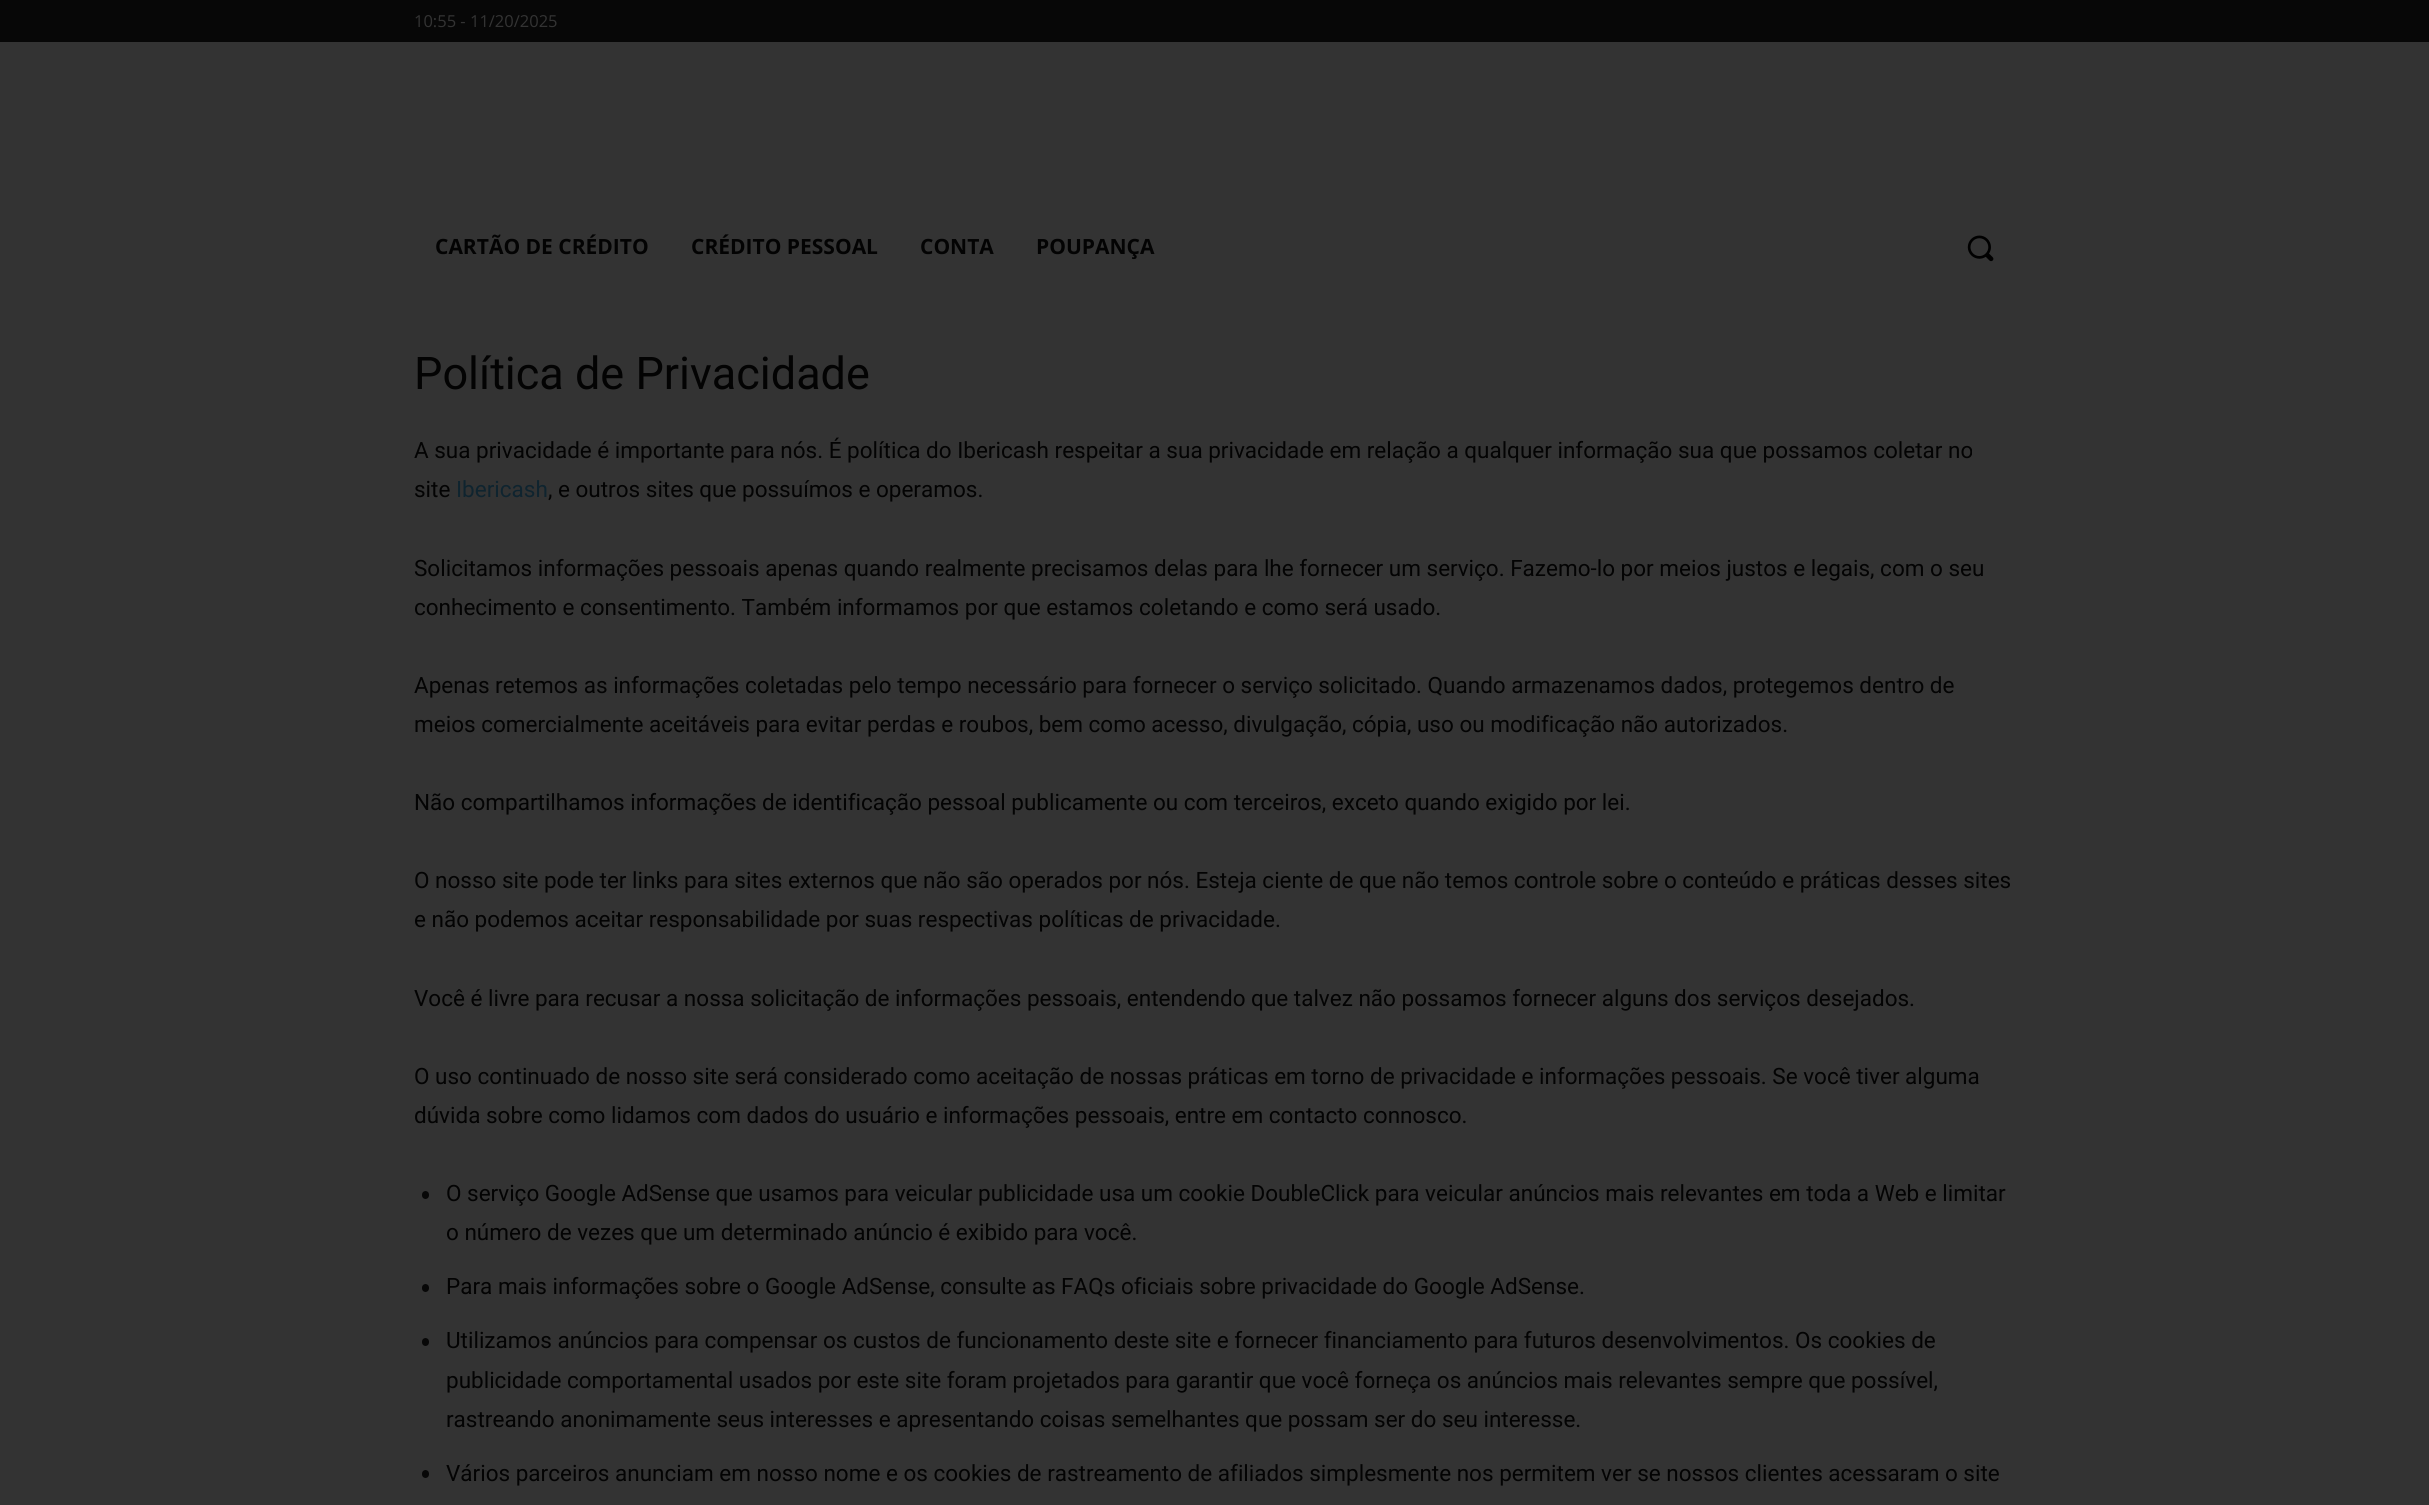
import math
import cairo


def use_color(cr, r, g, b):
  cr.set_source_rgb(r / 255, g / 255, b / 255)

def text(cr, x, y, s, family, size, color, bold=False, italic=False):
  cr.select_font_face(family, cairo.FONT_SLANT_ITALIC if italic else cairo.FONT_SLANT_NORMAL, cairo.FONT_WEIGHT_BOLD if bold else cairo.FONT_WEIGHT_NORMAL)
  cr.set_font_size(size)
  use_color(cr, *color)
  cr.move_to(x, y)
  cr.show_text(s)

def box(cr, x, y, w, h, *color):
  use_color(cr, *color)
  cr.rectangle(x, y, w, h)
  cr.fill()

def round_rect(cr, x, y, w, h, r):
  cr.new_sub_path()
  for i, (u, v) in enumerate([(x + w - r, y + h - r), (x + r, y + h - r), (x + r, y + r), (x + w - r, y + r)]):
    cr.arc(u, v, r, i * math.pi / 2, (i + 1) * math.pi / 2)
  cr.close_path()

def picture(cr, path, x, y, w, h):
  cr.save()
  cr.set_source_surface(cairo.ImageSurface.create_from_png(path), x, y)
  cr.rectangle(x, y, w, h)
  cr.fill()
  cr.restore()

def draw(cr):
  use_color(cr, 51, 51, 51)
  cr.paint()
  box(cr, 0, 0, 2429, 42, 7, 7, 7)
  picture(cr, "img_01.png", 1967, 235, 27, 27)
  round_rect(cr, 422, 1191, 7, 8, 3.5)
  cr.fill()
  round_rect(cr, 422, 1284, 7, 8, 3.5)
  cr.fill()
  round_rect(cr, 422, 1338, 7, 8, 3.5)
  cr.fill()
  round_rect(cr, 422, 1470, 7, 8, 3.5)
  cr.fill()
  text(cr, 414, 27, "10:55 - 11/20/2025", "Open Sans", 16.5, (51, 51, 51))
  text(cr, 435, 254, "CARTÃO DE CRÉDITO", "Open Sans", 21, (3, 3, 3), bold=True)
  text(cr, 691, 254, "CRÉDITO PESSOAL", "Open Sans", 21, (3, 3, 3), bold=True)
  text(cr, 920, 254, "CONTA", "Open Sans", 21, (3, 3, 3), bold=True)
  text(cr, 1036, 254, "POUPANÇA", "Open Sans", 21, (3, 3, 3), bold=True)
  text(cr, 414, 389, "Política de Privacidade", "Roboto", 45, (3, 3, 3))
  text(cr, 414, 458, "A sua privacidade é importante para nós. É política do Ibericash respeitar a sua privacidade em relação a qualquer informação sua que possamos coletar no", "Roboto", 22.5, (3, 3, 3))
  text(cr, 414, 497, "site", "Roboto", 22.5, (3, 3, 3))
  text(cr, 456, 497, "Ibericash", "Roboto", 22.5, (15, 36, 47))
  text(cr, 548, 497, ", e outros sites que possuímos e operamos.", "Roboto", 22.5, (3, 3, 3))
  text(cr, 414, 576, "Solicitamos informações pessoais apenas quando realmente precisamos delas para lhe fornecer um serviço. Fazemo-lo por meios justos e legais, com o seu", "Roboto", 22.5, (3, 3, 3))
  text(cr, 414, 615, "conhecimento e consentimento. Também informamos por que estamos coletando e como será usado.", "Roboto", 22.5, (3, 3, 3))
  text(cr, 414, 693, "Apenas retemos as informações coletadas pelo tempo necessário para fornecer o serviço solicitado. Quando armazenamos dados, protegemos dentro de", "Roboto", 22.5, (3, 3, 3))
  text(cr, 414, 732, "meios comercialmente aceitáveis para evitar perdas e roubos, bem como acesso, divulgação, cópia, uso ou modificação não autorizados.", "Roboto", 22.5, (3, 3, 3))
  text(cr, 414, 810, "Não compartilhamos informações de identificação pessoal publicamente ou com terceiros, exceto quando exigido por lei.", "Roboto", 22.5, (3, 3, 3))
  text(cr, 414, 888, "O nosso site pode ter links para sites externos que não são operados por nós. Esteja ciente de que não temos controle sobre o conteúdo e práticas desses sites", "Roboto", 22.5, (3, 3, 3))
  text(cr, 414, 927, "e não podemos aceitar responsabilidade por suas respectivas políticas de privacidade.", "Roboto", 22.5, (3, 3, 3))
  text(cr, 414, 1006, "Você é livre para recusar a nossa solicitação de informações pessoais, entendendo que talvez não possamos fornecer alguns dos serviços desejados.", "Roboto", 22.5, (3, 3, 3))
  text(cr, 414, 1084, "O uso continuado de nosso site será considerado como aceitação de nossas práticas em torno de privacidade e informações pessoais. Se você tiver alguma", "Roboto", 22.5, (3, 3, 3))
  text(cr, 414, 1123, "dúvida sobre como lidamos com dados do usuário e informações pessoais, entre em contacto connosco.", "Roboto", 22.5, (3, 3, 3))
  text(cr, 446, 1201, "O serviço Google AdSense que usamos para veicular publicidade usa um cookie DoubleClick para veicular anúncios mais relevantes em toda a Web e limitar", "Roboto", 22.5, (3, 3, 3))
  text(cr, 446, 1240, "o número de vezes que um determinado anúncio é exibido para você.", "Roboto", 22.5, (3, 3, 3))
  text(cr, 446, 1294, "Para mais informações sobre o Google AdSense, consulte as FAQs oficiais sobre privacidade do Google AdSense.", "Roboto", 22.5, (3, 3, 3))
  text(cr, 446, 1348, "Utilizamos anúncios para compensar os custos de funcionamento deste site e fornecer financiamento para futuros desenvolvimentos. Os cookies de", "Roboto", 22.5, (3, 3, 3))
  text(cr, 446, 1388, "publicidade comportamental usados por este site foram projetados para garantir que você forneça os anúncios mais relevantes sempre que possível,", "Roboto", 22.5, (3, 3, 3))
  text(cr, 446, 1427, "rastreando anonimamente seus interesses e apresentando coisas semelhantes que possam ser do seu interesse.", "Roboto", 22.5, (3, 3, 3))
  text(cr, 446, 1481, "Vários parceiros anunciam em nosso nome e os cookies de rastreamento de afiliados simplesmente nos permitem ver se nossos clientes acessaram o site", "Roboto", 22.5, (3, 3, 3))


surface = cairo.ImageSurface(cairo.FORMAT_RGB24, 2429, 1505)
cr = cairo.Context(surface)
options = cairo.FontOptions()
options.set_hint_metrics(cairo.HINT_METRICS_OFF)
options.set_hint_style(cairo.HINT_STYLE_NONE)
cr.set_font_options(options)
cr.set_miter_limit(4)
draw(cr)
surface.write_to_png("out.png")
